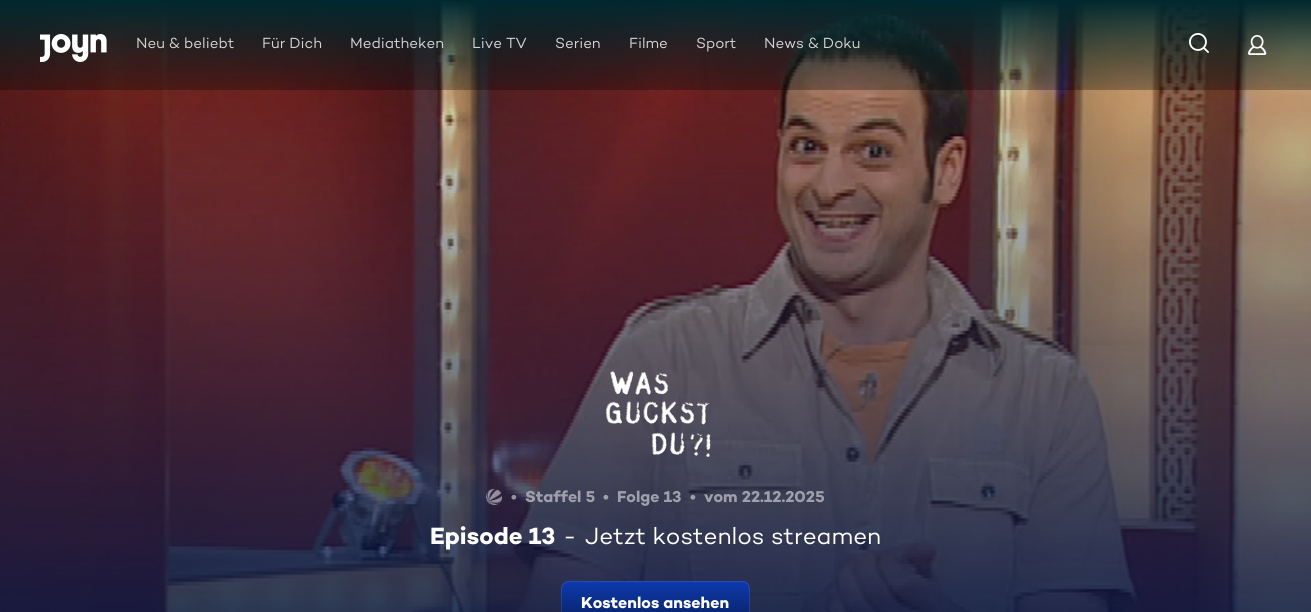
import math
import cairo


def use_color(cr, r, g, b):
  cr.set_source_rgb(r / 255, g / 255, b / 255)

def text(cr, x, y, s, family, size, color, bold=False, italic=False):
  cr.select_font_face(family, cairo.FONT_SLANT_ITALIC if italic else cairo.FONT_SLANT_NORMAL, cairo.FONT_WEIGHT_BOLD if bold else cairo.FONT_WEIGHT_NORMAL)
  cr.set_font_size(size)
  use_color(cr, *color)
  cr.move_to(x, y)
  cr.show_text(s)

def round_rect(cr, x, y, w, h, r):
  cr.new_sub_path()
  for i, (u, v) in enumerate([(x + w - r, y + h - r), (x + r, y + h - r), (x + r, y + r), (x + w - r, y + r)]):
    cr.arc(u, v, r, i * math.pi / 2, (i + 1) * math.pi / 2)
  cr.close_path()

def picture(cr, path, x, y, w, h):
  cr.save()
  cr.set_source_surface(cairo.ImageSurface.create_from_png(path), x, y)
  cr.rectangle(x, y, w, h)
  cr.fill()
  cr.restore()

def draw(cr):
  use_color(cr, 5, 23, 69)
  cr.paint()
  picture(cr, "img_04.png", 0, 1, 1311, 611)
  gradient = cairo.LinearGradient(656, 0, 656, 90)
  gradient.add_color_stop_rgba(0, 0, 0.227, 0.263, 1)
  gradient.add_color_stop_rgba(1, 0, 0.227, 0.263, 0)
  cr.set_source(gradient)
  cr.rectangle(0, 0, 1311, 88)
  cr.fill()
  cr.set_source_rgba(0, 0, 0, 0.3)
  cr.rectangle(0, 0, 1311, 90)
  cr.fill()
  picture(cr, "img_01.png", 40, 34, 67, 28)
  picture(cr, "img_02.png", 1189, 33, 20, 20)
  picture(cr, "img_03.png", 1248, 35, 19, 20)
  picture(cr, "img_05.png", 605, 371, 106, 86)
  picture(cr, "img_06.png", 486, 489, 16, 16)
  gradient = cairo.LinearGradient(656, 581, 656, 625)
  gradient.add_color_stop_rgba(0, 0.055, 0.227, 0.682, 1)
  gradient.add_color_stop_rgba(1, 0.031, 0.125, 0.376, 1)
  cr.set_source(gradient)
  round_rect(cr, 561, 581, 189, 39, 8)
  cr.fill()
  round_rect(cr, 561.5, 581.5, 188, 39, 7.5)
  cr.set_source_rgba(1, 1, 1, 0.1)
  cr.set_line_width(1)
  cr.stroke()
  text(cr, 136, 48, "Neu & beliebt", "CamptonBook", 15, (211, 210, 211))
  text(cr, 262, 48, "Für Dich", "CamptonBook", 15, (211, 210, 211))
  text(cr, 350, 48, "Mediatheken", "CamptonBook", 15, (211, 210, 211))
  text(cr, 472, 48, "Live TV", "CamptonBook", 15, (211, 210, 211))
  text(cr, 555, 48, "Serien", "CamptonBook", 15, (211, 210, 211))
  text(cr, 629, 48, "Filme", "CamptonBook", 15, (211, 210, 211))
  text(cr, 696, 48, "Sport", "CamptonBook", 15, (211, 210, 211))
  text(cr, 764, 48, "News & Doku", "CamptonBook", 15, (211, 210, 211))
  text(cr, 511, 502, "•", "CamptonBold", 16, (150, 145, 158), bold=True)
  text(cr, 525, 502, "Staffel 5", "CamptonBold", 16, (158, 159, 170), bold=True)
  text(cr, 603, 502, "•", "CamptonBold", 16, (158, 159, 170), bold=True)
  text(cr, 617, 502, "Folge 13", "CamptonBold", 16, (158, 159, 170), bold=True)
  text(cr, 690, 502, "•", "CamptonBold", 16, (158, 159, 170), bold=True)
  text(cr, 704, 502, "vom 22.12.2025", "CamptonBold", 16, (158, 159, 170), bold=True)
  text(cr, 430, 544, "Episode 13", "CamptonBold", 24, (255, 255, 255), bold=True)
  text(cr, 563, 544, "-", "CamptonBook", 24, (255, 255, 255))
  text(cr, 585, 544, "Jetzt kostenlos streamen", "CamptonBook", 24, (255, 255, 255))
  text(cr, 581, 608, "Kostenlos ansehen", "CamptonBold", 16, (255, 255, 255), bold=True)


surface = cairo.ImageSurface(cairo.FORMAT_RGB24, 1311, 612)
cr = cairo.Context(surface)
options = cairo.FontOptions()
options.set_hint_metrics(cairo.HINT_METRICS_OFF)
options.set_hint_style(cairo.HINT_STYLE_NONE)
cr.set_font_options(options)
cr.set_miter_limit(4)
draw(cr)
surface.write_to_png("out.png")
